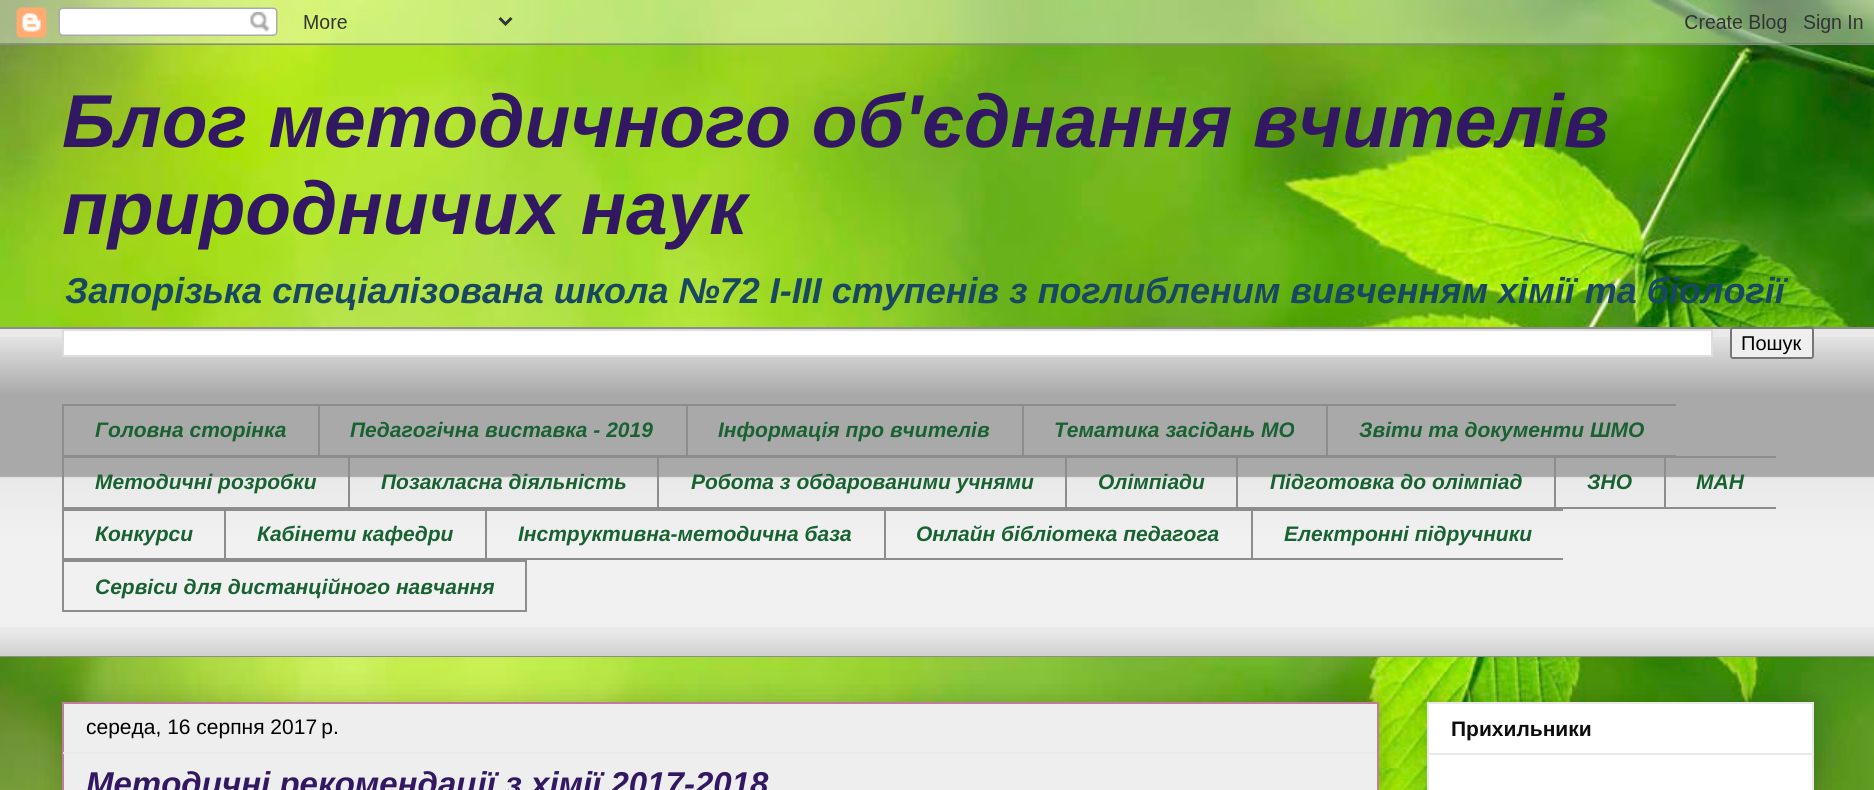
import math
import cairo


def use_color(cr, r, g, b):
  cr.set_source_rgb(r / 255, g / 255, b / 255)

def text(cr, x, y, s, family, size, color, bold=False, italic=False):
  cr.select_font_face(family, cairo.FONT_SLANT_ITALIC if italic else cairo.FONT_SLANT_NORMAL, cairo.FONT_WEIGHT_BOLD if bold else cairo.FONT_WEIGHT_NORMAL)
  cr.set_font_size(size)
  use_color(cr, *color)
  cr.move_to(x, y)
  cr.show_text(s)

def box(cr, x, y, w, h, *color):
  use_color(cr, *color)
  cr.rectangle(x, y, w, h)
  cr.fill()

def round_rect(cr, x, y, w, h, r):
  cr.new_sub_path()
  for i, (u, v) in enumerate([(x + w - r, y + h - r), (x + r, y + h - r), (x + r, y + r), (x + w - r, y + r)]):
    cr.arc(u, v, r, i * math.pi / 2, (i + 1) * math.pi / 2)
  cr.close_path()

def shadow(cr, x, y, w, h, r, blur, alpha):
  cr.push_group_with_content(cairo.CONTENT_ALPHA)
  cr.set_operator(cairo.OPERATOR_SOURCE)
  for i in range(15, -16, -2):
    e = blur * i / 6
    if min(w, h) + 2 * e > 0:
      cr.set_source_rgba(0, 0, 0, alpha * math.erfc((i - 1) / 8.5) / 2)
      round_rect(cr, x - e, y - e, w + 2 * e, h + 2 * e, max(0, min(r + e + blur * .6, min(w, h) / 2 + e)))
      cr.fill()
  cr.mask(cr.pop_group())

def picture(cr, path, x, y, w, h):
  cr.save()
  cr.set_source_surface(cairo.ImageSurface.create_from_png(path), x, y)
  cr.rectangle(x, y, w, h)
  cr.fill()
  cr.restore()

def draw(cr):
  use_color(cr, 255, 255, 255)
  cr.paint()
  picture(cr, "img_01.png", 0, 0, 1874, 790)
  picture(cr, "img_02.png", 0, 0, 1874, 45)
  box(cr, 0, 329, 1874, 327, 233, 233, 233)
  picture(cr, "img_03.png", 0, 337, 1874, 319)
  box(cr, 0, 327, 1874, 2, 141, 141, 141)
  use_color(cr, 255, 255, 255)
  cr.rectangle(63, 330, 1649, 26)
  cr.fill_preserve()
  use_color(cr, 221, 221, 221)
  cr.stroke()
  use_color(cr, 239, 239, 239)
  round_rect(cr, 1731, 328, 82, 30, 2)
  cr.fill_preserve()
  use_color(cr, 118, 118, 118)
  cr.stroke()
  box(cr, 62, 404, 1614, 2, 141, 141, 141)
  box(cr, 62, 455, 1614, 1, 141, 141, 141)
  box(cr, 62, 404, 2, 52, 141, 141, 141)
  box(cr, 318, 404, 2, 52, 141, 141, 141)
  box(cr, 686, 404, 2, 52, 141, 141, 141)
  box(cr, 1022, 404, 2, 52, 141, 141, 141)
  box(cr, 1326, 404, 2, 52, 141, 141, 141)
  box(cr, 62, 456, 1714, 2, 141, 141, 141)
  box(cr, 62, 507, 1714, 2, 141, 141, 141)
  box(cr, 62, 456, 2, 53, 141, 141, 141)
  box(cr, 348, 456, 2, 53, 141, 141, 141)
  box(cr, 657, 456, 2, 53, 141, 141, 141)
  box(cr, 1065, 456, 2, 53, 141, 141, 141)
  box(cr, 1236, 456, 2, 53, 141, 141, 141)
  box(cr, 1554, 456, 2, 53, 141, 141, 141)
  box(cr, 1664, 456, 2, 53, 141, 141, 141)
  box(cr, 62, 509, 1501, 2, 141, 141, 141)
  box(cr, 62, 558, 1501, 2, 141, 141, 141)
  box(cr, 62, 509, 2, 51, 141, 141, 141)
  box(cr, 224, 509, 2, 51, 141, 141, 141)
  box(cr, 485, 509, 2, 51, 141, 141, 141)
  box(cr, 884, 509, 2, 51, 141, 141, 141)
  box(cr, 1251, 509, 2, 51, 141, 141, 141)
  cr.rectangle(63, 561, 463, 50)
  cr.stroke()
  box(cr, 0, 656, 1874, 1, 141, 141, 141)
  use_color(cr, 0, 0, 0)
  shadow(cr, 62, 702, 1317, 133, 0, 15, 0.2)
  use_color(cr, 238, 238, 238)
  cr.rectangle(63, 703, 1315, 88)
  cr.fill_preserve()
  use_color(cr, 194, 123, 160)
  cr.stroke()
  box(cr, 63, 752, 1314, 2, 233, 233, 233)
  use_color(cr, 0, 0, 0)
  shadow(cr, 1427, 702, 387, 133, 0, 15, 0.2)
  use_color(cr, 255, 255, 255)
  cr.rectangle(1428, 703, 385, 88)
  cr.fill_preserve()
  use_color(cr, 233, 233, 233)
  cr.stroke()
  box(cr, 1428, 753, 384, 2, 233, 233, 233)
  text(cr, 62, 147, "Блог методичного об'єднання вчителів", "Liberation Sans", 75, (50, 24, 98), bold=True, italic=True)
  text(cr, 62, 234, "природничих наук", "Liberation Sans", 75, (50, 24, 98), bold=True, italic=True)
  text(cr, 65, 303, "Запорізька спеціалізована школа №72 І-ІІІ ступенів з поглибленим вивченням хімії та біології", "Liberation Sans", 36, (24, 71, 98), bold=True, italic=True)
  text(cr, 1741, 350, "Пошук", "Liberation Sans", 20, (0, 0, 0))
  text(cr, 95, 437, "Головна сторінка", "Liberation Sans", 21, (24, 98, 50), bold=True, italic=True)
  text(cr, 350, 437, "Педагогічна виставка - 2019", "Liberation Sans", 21, (24, 98, 50), bold=True, italic=True)
  text(cr, 718, 437, "Інформація про вчителів", "Liberation Sans", 21, (24, 98, 50), bold=True, italic=True)
  text(cr, 1054, 437, "Тематика засідань МО", "Liberation Sans", 21, (24, 98, 50), bold=True, italic=True)
  text(cr, 1359, 437, "Звіти та документи ШМО", "Liberation Sans", 21, (24, 98, 50), bold=True, italic=True)
  text(cr, 95, 489, "Методичні розробки", "Liberation Sans", 21, (24, 98, 50), bold=True, italic=True)
  text(cr, 381, 489, "Позакласна діяльність", "Liberation Sans", 21, (24, 98, 50), bold=True, italic=True)
  text(cr, 691, 489, "Робота з обдарованими учнями", "Liberation Sans", 21, (24, 98, 50), bold=True, italic=True)
  text(cr, 1098, 489, "Олімпіади", "Liberation Sans", 21, (24, 98, 50), bold=True, italic=True)
  text(cr, 1270, 489, "Підготовка до олімпіад", "Liberation Sans", 21, (24, 98, 50), bold=True, italic=True)
  text(cr, 1587, 489, "ЗНО", "Liberation Sans", 21, (24, 98, 50), bold=True, italic=True)
  text(cr, 1696, 489, "МАН", "Liberation Sans", 21, (24, 98, 50), bold=True, italic=True)
  text(cr, 95, 541, "Конкурси", "Liberation Sans", 21, (24, 98, 50), bold=True, italic=True)
  text(cr, 257, 541, "Кабінети кафедри", "Liberation Sans", 21, (24, 98, 50), bold=True, italic=True)
  text(cr, 518, 541, "Інструктивна-методична база", "Liberation Sans", 21, (24, 98, 50), bold=True, italic=True)
  text(cr, 916, 541, "Онлайн бібліотека педагога", "Liberation Sans", 21, (24, 98, 50), bold=True, italic=True)
  text(cr, 1284, 541, "Електронні підручники", "Liberation Sans", 21, (24, 98, 50), bold=True, italic=True)
  text(cr, 95, 594, "Сервіси для дистанційного навчання", "Liberation Sans", 21, (24, 98, 50), bold=True, italic=True)
  text(cr, 86, 734, "середа, 16 серпня 2017 р.", "Liberation Sans", 21, (0, 0, 0))
  text(cr, 86, 795, "Методичні рекомендації з хімії 2017-2018", "Liberation Sans", 33, (50, 24, 98), bold=True, italic=True)
  text(cr, 1451, 736, "Прихильники", "Liberation Sans", 21, (12, 12, 12), bold=True)


surface = cairo.ImageSurface(cairo.FORMAT_RGB24, 1874, 790)
cr = cairo.Context(surface)
options = cairo.FontOptions()
options.set_hint_metrics(cairo.HINT_METRICS_OFF)
options.set_hint_style(cairo.HINT_STYLE_NONE)
cr.set_font_options(options)
cr.set_miter_limit(4)
draw(cr)
surface.write_to_png("out.png")
